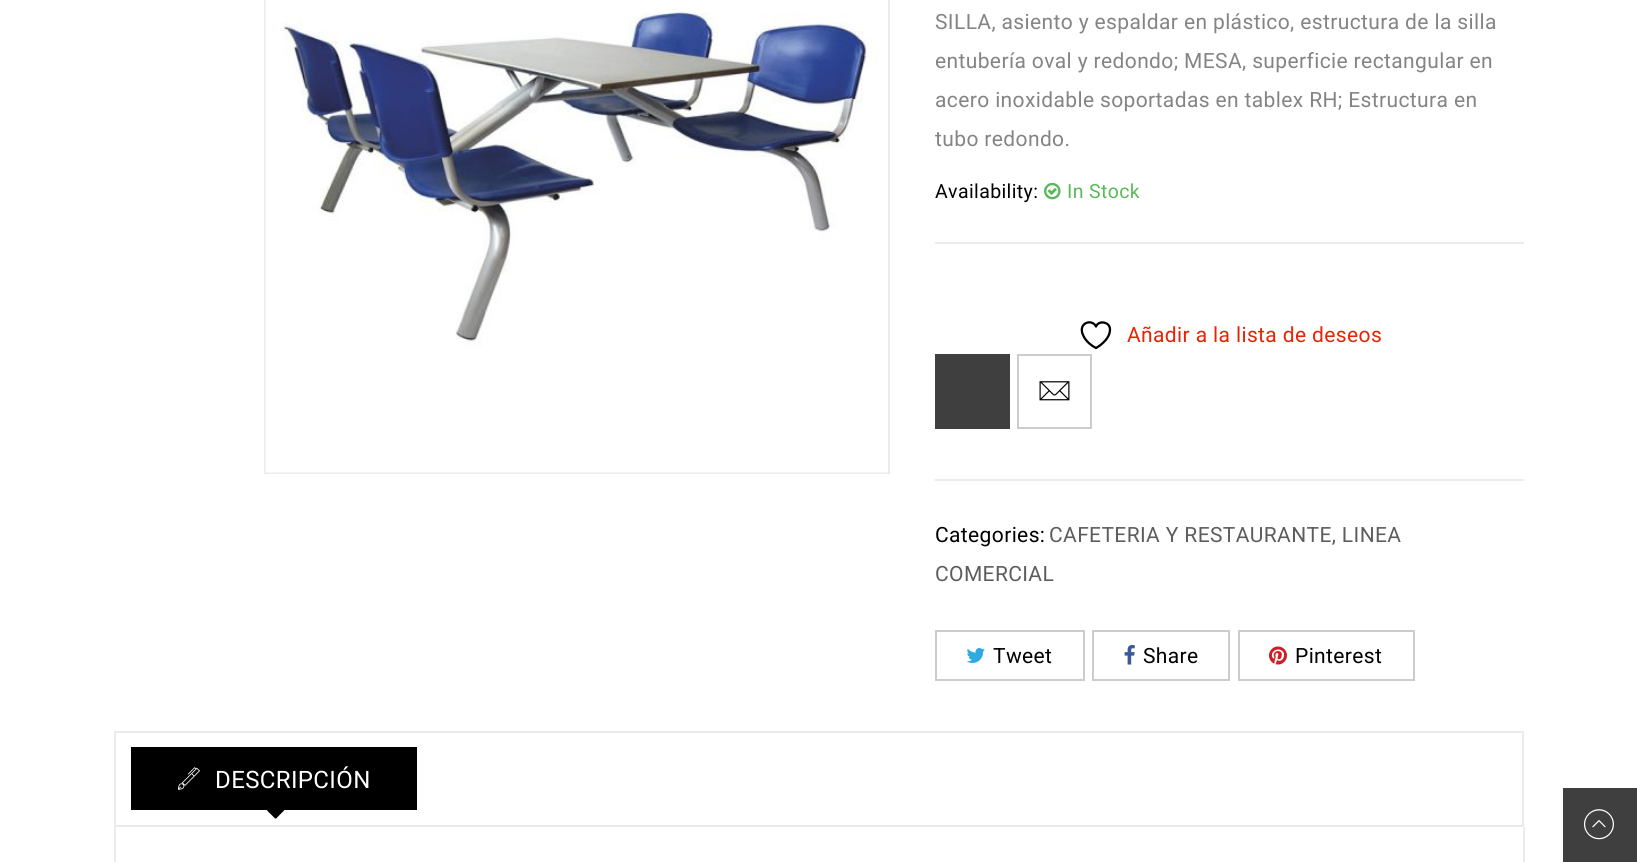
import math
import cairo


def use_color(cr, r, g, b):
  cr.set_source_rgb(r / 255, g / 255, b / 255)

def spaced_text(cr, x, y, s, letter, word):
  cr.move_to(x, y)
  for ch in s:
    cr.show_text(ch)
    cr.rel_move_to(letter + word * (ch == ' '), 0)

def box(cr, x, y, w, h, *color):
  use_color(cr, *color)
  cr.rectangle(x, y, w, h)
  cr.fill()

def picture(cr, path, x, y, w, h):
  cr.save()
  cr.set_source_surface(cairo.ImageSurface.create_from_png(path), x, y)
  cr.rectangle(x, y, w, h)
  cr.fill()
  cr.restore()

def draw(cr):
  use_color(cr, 255, 255, 255)
  cr.paint()
  cr.rectangle(265, -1, 624, 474)
  use_color(cr, 235, 235, 235)
  cr.stroke()
  picture(cr, "img_01.png", 265, 0, 623, 473)
  picture(cr, "img_02.png", 1044, 182, 17, 18)
  box(cr, 935, 242, 589, 2, 235, 235, 235)
  cr.new_path()
  cr.move_to(1110, 329.5)
  cr.curve_to(1110, 321.5, 1098.5, 320, 1096, 326.5)
  cr.curve_to(1092, 318, 1076, 323, 1084, 337)
  cr.curve_to(1086.5, 341.5, 1091, 345.5, 1096, 348)
  cr.curve_to(1096, 348, 1110, 340.5, 1110, 329.5)
  cr.close_path()
  use_color(cr, 0, 0, 0)
  cr.set_line_width(2.3)
  cr.set_line_cap(cairo.LINE_CAP_ROUND)
  cr.set_line_join(cairo.LINE_JOIN_ROUND)
  cr.stroke()
  box(cr, 935, 354, 75, 75, 63, 63, 63)
  cr.rectangle(1018, 355, 73, 73)
  use_color(cr, 204, 204, 204)
  cr.set_line_width(2)
  cr.set_line_cap(cairo.LINE_CAP_BUTT)
  cr.set_line_join(cairo.LINE_JOIN_MITER)
  cr.stroke()
  picture(cr, "img_03.png", 1039, 381, 31, 20)
  box(cr, 935, 479, 589, 2, 235, 235, 235)
  cr.rectangle(936, 631, 148, 49)
  use_color(cr, 204, 204, 204)
  cr.stroke()
  picture(cr, "img_04.png", 966, 648, 19, 15)
  cr.rectangle(1093, 631, 136, 49)
  cr.stroke()
  picture(cr, "img_05.png", 1124, 645, 11, 20)
  cr.rectangle(1239, 631, 175, 49)
  cr.stroke()
  picture(cr, "img_06.png", 1269, 646, 18, 19)
  cr.rectangle(115, 732, 1408, 94)
  use_color(cr, 235, 235, 235)
  cr.stroke()
  box(cr, 131, 747, 286, 63, 0, 0, 0)
  picture(cr, "img_07.png", 178, 767, 22, 23)
  picture(cr, "img_08.png", 267, 810, 18, 9)
  box(cr, 1523, 827, 2, 35, 235, 235, 235)
  box(cr, 114, 827, 2, 35, 235, 235, 235)
  box(cr, 1563, 788, 74, 74, 63, 63, 63)
  picture(cr, "img_09.png", 1583, 809, 31, 31)
  cr.select_font_face("Roboto")
  cr.set_font_size(21)
  use_color(cr, 132, 132, 132)
  spaced_text(cr, 935, 29, "SILLA, asiento y espaldar en plástico, estructura de la silla", 0.38, 0)
  spaced_text(cr, 935, 68, "entubería oval y redondo; MESA, superficie rectangular en", 0.38, 0)
  spaced_text(cr, 935, 107, "acero inoxidable soportadas en tablex RH; Estructura en", 0.38, 0)
  spaced_text(cr, 935, 146, "tubo redondo.", 0.38, 0)
  cr.set_font_size(19.5)
  use_color(cr, 0, 0, 0)
  spaced_text(cr, 935, 198, "Availability:", 0.38, 0)
  use_color(cr, 92, 184, 92)
  spaced_text(cr, 1067, 198, "In Stock", 0.38, 0)
  cr.set_font_size(21)
  use_color(cr, 231, 35, 4)
  spaced_text(cr, 1127, 342, "Añadir a la lista de deseos", 0.38, 0)
  use_color(cr, 0, 0, 0)
  spaced_text(cr, 935, 542, "Categories:", 0.38, 0)
  use_color(cr, 93, 93, 93)
  spaced_text(cr, 1049, 542, "CAFETERIA Y RESTAURANTE, LINEA", 0.38, 0)
  spaced_text(cr, 935, 581, "COMERCIAL", 0.38, 0)
  use_color(cr, 0, 0, 0)
  spaced_text(cr, 993, 663, "Tweet", 0.38, 0)
  spaced_text(cr, 1143, 663, "Share", 0.38, 0)
  spaced_text(cr, 1295, 663, "Pinterest", 0.38, 0)
  cr.set_font_size(24)
  use_color(cr, 255, 255, 255)
  spaced_text(cr, 215, 788, "DESCRIPCIÓN", 0.38, 0)


surface = cairo.ImageSurface(cairo.FORMAT_RGB24, 1637, 862)
cr = cairo.Context(surface)
options = cairo.FontOptions()
options.set_hint_metrics(cairo.HINT_METRICS_OFF)
options.set_hint_style(cairo.HINT_STYLE_NONE)
cr.set_font_options(options)
cr.set_miter_limit(4)
draw(cr)
surface.write_to_png("out.png")
